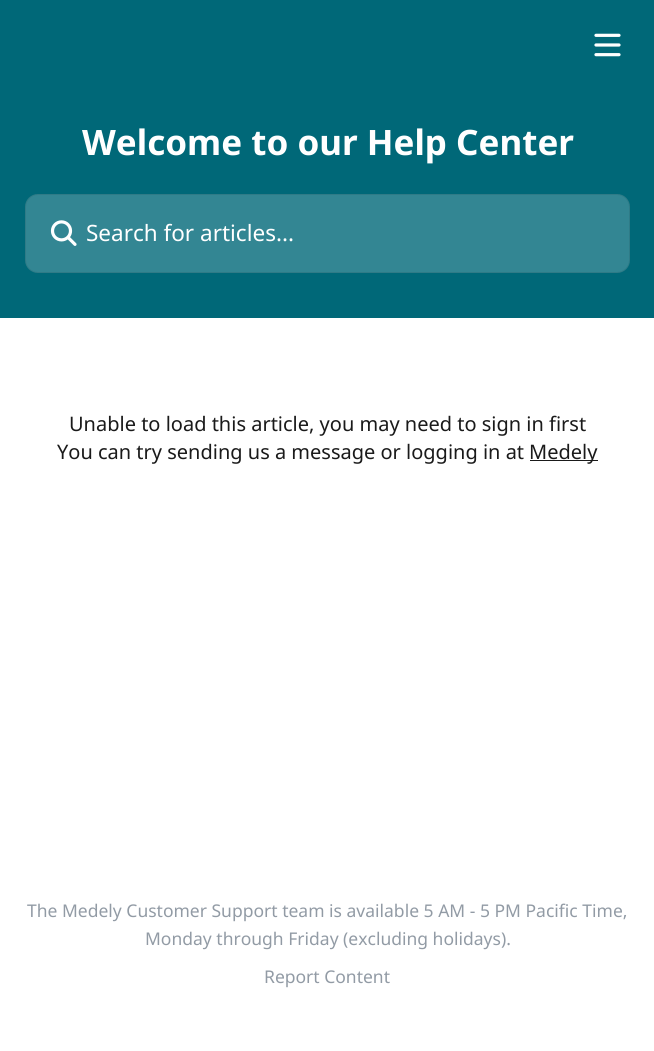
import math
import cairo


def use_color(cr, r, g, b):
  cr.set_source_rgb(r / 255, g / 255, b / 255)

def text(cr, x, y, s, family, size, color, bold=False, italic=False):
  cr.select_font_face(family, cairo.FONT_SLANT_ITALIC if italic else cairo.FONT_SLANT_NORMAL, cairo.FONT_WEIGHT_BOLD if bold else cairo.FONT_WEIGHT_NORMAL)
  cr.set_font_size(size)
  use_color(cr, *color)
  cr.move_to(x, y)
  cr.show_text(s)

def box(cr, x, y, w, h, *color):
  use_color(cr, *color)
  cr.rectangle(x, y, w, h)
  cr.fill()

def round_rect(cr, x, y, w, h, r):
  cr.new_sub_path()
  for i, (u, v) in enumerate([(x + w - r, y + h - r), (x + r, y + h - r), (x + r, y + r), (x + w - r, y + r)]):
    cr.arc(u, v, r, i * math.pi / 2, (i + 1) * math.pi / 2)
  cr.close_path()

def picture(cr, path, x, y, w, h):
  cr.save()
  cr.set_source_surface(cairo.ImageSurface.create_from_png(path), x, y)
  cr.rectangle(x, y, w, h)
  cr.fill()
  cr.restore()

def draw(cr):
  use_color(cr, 255, 255, 255)
  cr.paint()
  box(cr, 0, 0, 654, 318, 0, 104, 120)
  picture(cr, "img_01.png", 594, 33, 27, 24)
  cr.set_source_rgba(1, 1, 1, 0.2)
  round_rect(cr, 25, 194, 605, 79, 13)
  cr.fill()
  round_rect(cr, 25.5, 194.5, 604, 78, 12.5)
  cr.set_source_rgba(0, 0, 0, 0.08)
  cr.set_line_width(1)
  cr.stroke()
  picture(cr, "img_02.png", 50, 220, 27, 26)
  box(cr, 530, 460, 68, 1, 26, 26, 26)
  text(cr, 82, 155, "Welcome to our Help Center", "Noto Sans", 35, (255, 255, 255), bold=True)
  text(cr, 86, 241, "Search for articles...", "Noto Sans", 22.5, (255, 255, 255))
  text(cr, 69, 431, "Unable to load this article, you may need to sign in first", "Noto Sans", 20, (26, 26, 26))
  text(cr, 57, 459, "You can try sending us a message or logging in at", "Noto Sans", 20, (26, 26, 26))
  text(cr, 529, 459, "Medely", "Noto Sans", 20, (26, 26, 26))
  text(cr, 27, 917, "The Medely Customer Support team is available 5 AM - 5 PM Pacific Time,", "Noto Sans", 17.5, (146, 155, 165))
  text(cr, 145, 945, "Monday through Friday (excluding holidays).", "Noto Sans", 17.5, (146, 155, 165))
  text(cr, 264, 983, "Report Content", "Noto Sans", 17.5, (146, 155, 165))


surface = cairo.ImageSurface(cairo.FORMAT_RGB24, 654, 1051)
cr = cairo.Context(surface)
options = cairo.FontOptions()
options.set_hint_metrics(cairo.HINT_METRICS_OFF)
options.set_hint_style(cairo.HINT_STYLE_NONE)
cr.set_font_options(options)
cr.set_miter_limit(4)
draw(cr)
surface.write_to_png("out.png")
